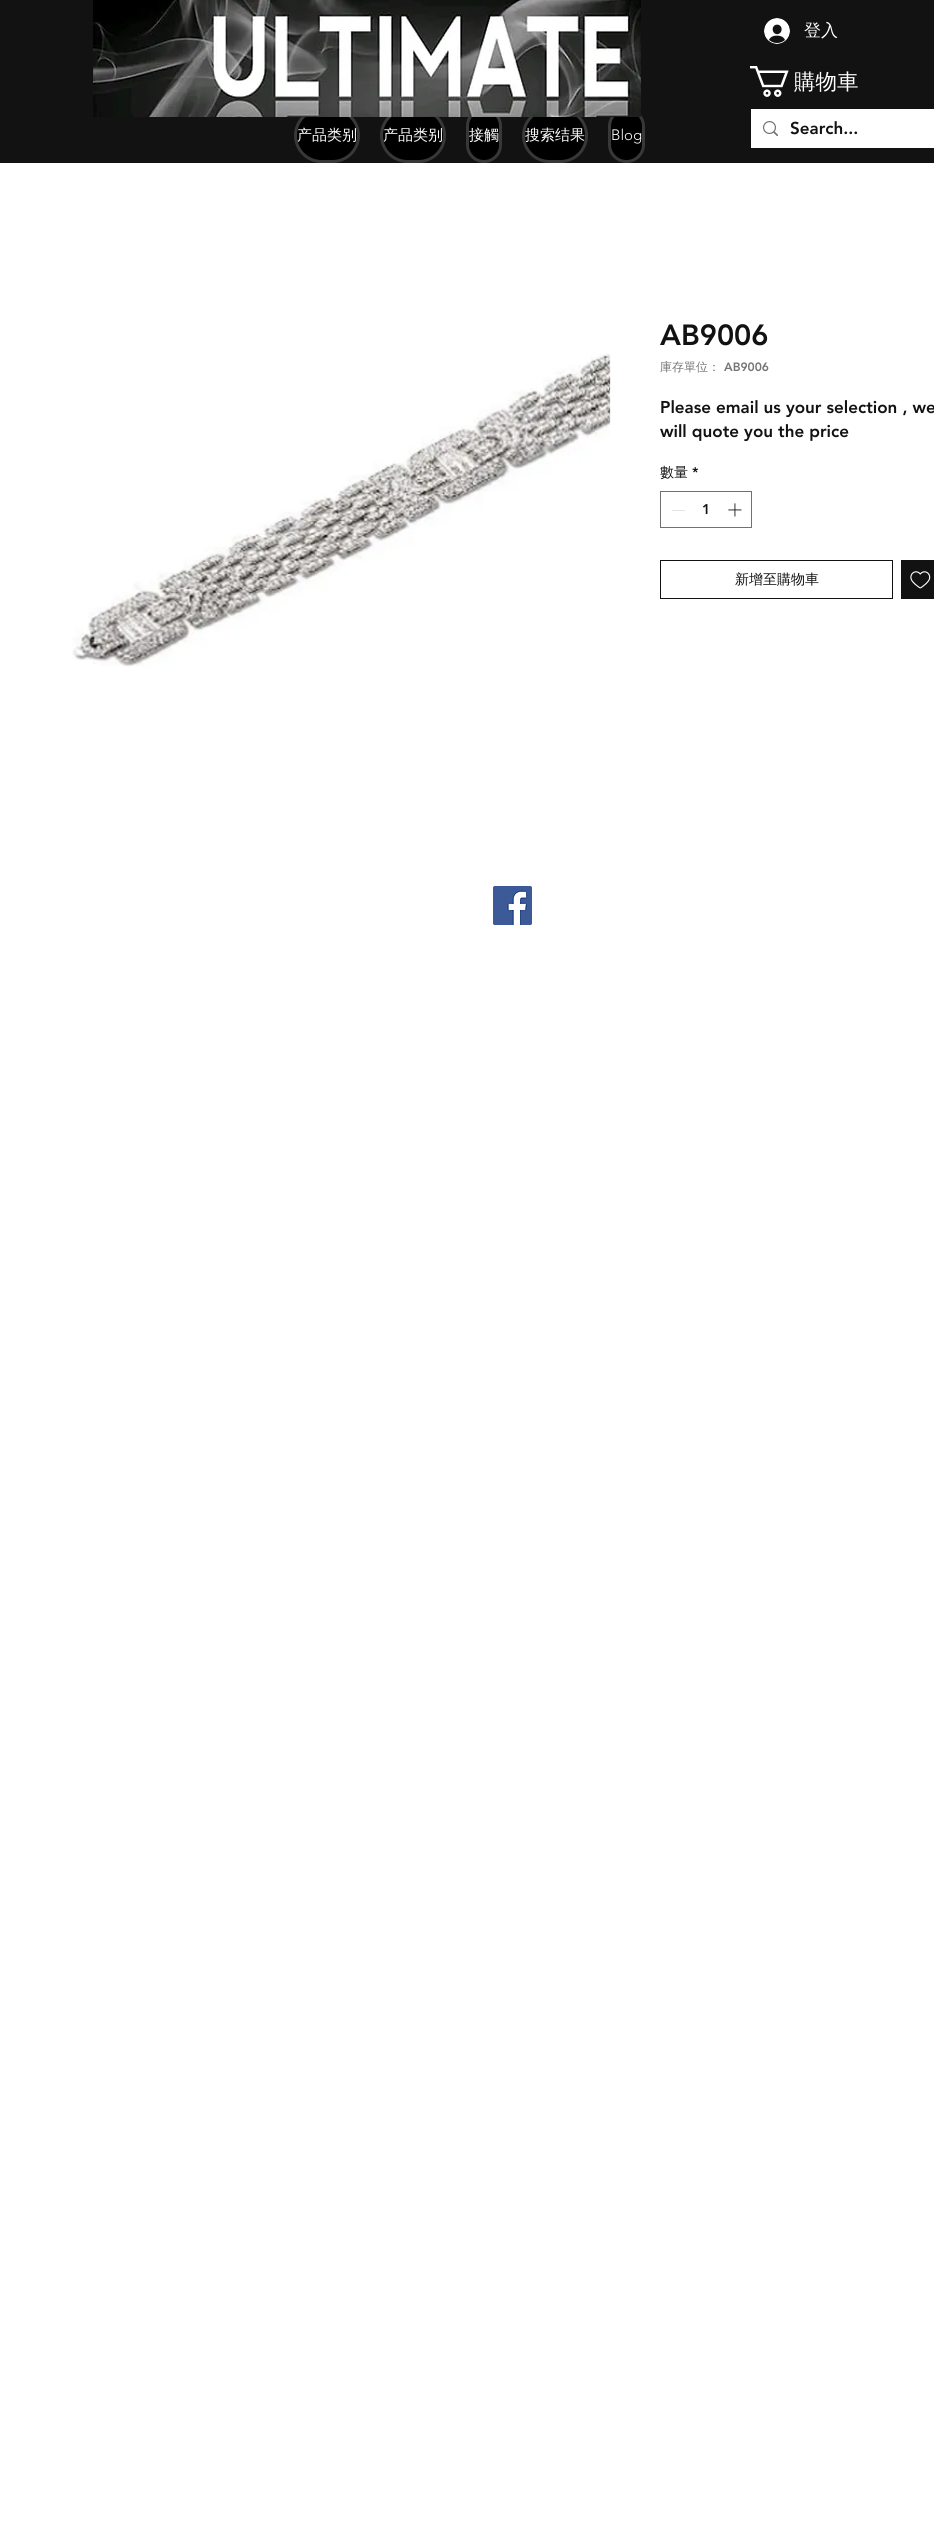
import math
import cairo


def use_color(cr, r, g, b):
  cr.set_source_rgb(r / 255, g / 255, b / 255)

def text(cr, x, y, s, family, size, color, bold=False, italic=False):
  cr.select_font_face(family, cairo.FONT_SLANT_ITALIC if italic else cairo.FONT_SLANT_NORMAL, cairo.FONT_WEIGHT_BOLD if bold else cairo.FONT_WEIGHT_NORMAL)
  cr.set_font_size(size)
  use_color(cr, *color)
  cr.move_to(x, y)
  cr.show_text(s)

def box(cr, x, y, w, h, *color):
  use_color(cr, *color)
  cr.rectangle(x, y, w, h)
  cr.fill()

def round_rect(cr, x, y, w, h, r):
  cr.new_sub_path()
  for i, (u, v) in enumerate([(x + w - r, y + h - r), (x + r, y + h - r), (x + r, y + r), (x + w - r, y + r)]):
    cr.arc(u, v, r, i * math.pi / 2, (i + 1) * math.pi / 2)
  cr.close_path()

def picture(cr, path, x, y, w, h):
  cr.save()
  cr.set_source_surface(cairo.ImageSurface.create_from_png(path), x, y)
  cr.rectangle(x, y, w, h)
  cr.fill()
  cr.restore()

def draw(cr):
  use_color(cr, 255, 255, 255)
  cr.paint()
  box(cr, 0, 0, 934, 163, 18, 18, 18)
  use_color(cr, 0, 0, 0)
  round_rect(cr, 295.5, 109.5, 63, 52, 26)
  cr.fill_preserve()
  use_color(cr, 56, 56, 56)
  cr.set_line_width(3)
  cr.stroke()
  use_color(cr, 0, 0, 0)
  round_rect(cr, 381.5, 109.5, 63, 52, 26)
  cr.fill_preserve()
  use_color(cr, 56, 56, 56)
  cr.stroke()
  use_color(cr, 0, 0, 0)
  round_rect(cr, 467.5, 109.5, 33, 52, 16.5)
  cr.fill_preserve()
  use_color(cr, 56, 56, 56)
  cr.stroke()
  use_color(cr, 0, 0, 0)
  round_rect(cr, 523.5, 109.5, 63, 52, 26)
  cr.fill_preserve()
  use_color(cr, 56, 56, 56)
  cr.stroke()
  use_color(cr, 0, 0, 0)
  round_rect(cr, 609.5, 109.5, 34, 52, 17)
  cr.fill_preserve()
  use_color(cr, 56, 56, 56)
  cr.stroke()
  picture(cr, "img_01.png", 93, 0, 548, 117)
  picture(cr, "img_02.png", 764, 18, 26, 26)
  picture(cr, "img_03.png", 750, 66, 39, 31)
  box(cr, 751, 109, 183, 39, 255, 255, 255)
  picture(cr, "img_04.png", 763, 121, 15, 15)
  picture(cr, "img_05.png", 72, 353, 539, 314)
  cr.rectangle(660.5, 491.5, 91, 36)
  use_color(cr, 113, 113, 113)
  cr.set_line_width(1)
  cr.stroke()
  box(cr, 672, 510, 13, 1, 227, 227, 227)
  picture(cr, "img_06.png", 728, 503, 14, 14)
  cr.rectangle(660.5, 560.5, 232, 38)
  use_color(cr, 18, 18, 18)
  cr.stroke()
  box(cr, 901, 560, 33, 39, 18, 18, 18)
  picture(cr, "img_07.png", 910, 571, 21, 18)
  picture(cr, "img_08.png", 493, 886, 39, 39)
  text(cr, 804, 36, "登入", "WenQuanYi Zen Hei Medium", 17, (255, 255, 255))
  text(cr, 794, 89, "購物車", "WenQuanYi Zen Hei Medium", 21.5, (255, 255, 255))
  text(cr, 297, 140, "产品类别", "WenQuanYi Zen Hei Medium", 15, (255, 255, 255))
  text(cr, 383, 140, "产品类别", "WenQuanYi Zen Hei Medium", 15, (255, 255, 255))
  text(cr, 469, 140, "接觸", "WenQuanYi Zen Hei Medium", 15, (255, 255, 255))
  text(cr, 525, 140, "搜索结果", "WenQuanYi Zen Hei Medium", 15, (255, 255, 255))
  text(cr, 611, 140, "Blog", "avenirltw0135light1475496 Light", 15, (255, 255, 255))
  text(cr, 790, 134, "Search...", "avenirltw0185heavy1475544 Black", 17, (18, 18, 18))
  text(cr, 660, 345, "AB9006", "avenirltw0185heavy1475544 Black", 29, (18, 18, 18))
  text(cr, 660, 371, "庫存單位：", "WenQuanYi Zen Hei Medium", 12, (117, 117, 117))
  text(cr, 724, 371, "AB9006", "avenirltw0185heavy1475544 Black", 12, (117, 117, 117))
  text(cr, 660, 413, "Please email us your selection , we", "avenirltw0185heavy1475544 Black", 17, (18, 18, 18))
  text(cr, 660, 437, "will quote you the price", "avenirltw0185heavy1475544 Black", 17, (18, 18, 18))
  text(cr, 660, 477, "數量", "WenQuanYi Zen Hei Medium", 14, (18, 18, 18))
  text(cr, 692, 477, "*", "avenirltw0185heavy1475544 Black", 14, (18, 18, 18))
  text(cr, 702, 514, "1", "avenirltw0185heavy1475544 Black", 14, (18, 18, 18))
  text(cr, 735, 584, "新增至購物車", "WenQuanYi Zen Hei Medium", 14, (18, 18, 18))


surface = cairo.ImageSurface(cairo.FORMAT_RGB24, 934, 2526)
cr = cairo.Context(surface)
options = cairo.FontOptions()
options.set_hint_metrics(cairo.HINT_METRICS_OFF)
options.set_hint_style(cairo.HINT_STYLE_NONE)
cr.set_font_options(options)
cr.set_miter_limit(4)
draw(cr)
surface.write_to_png("out.png")
